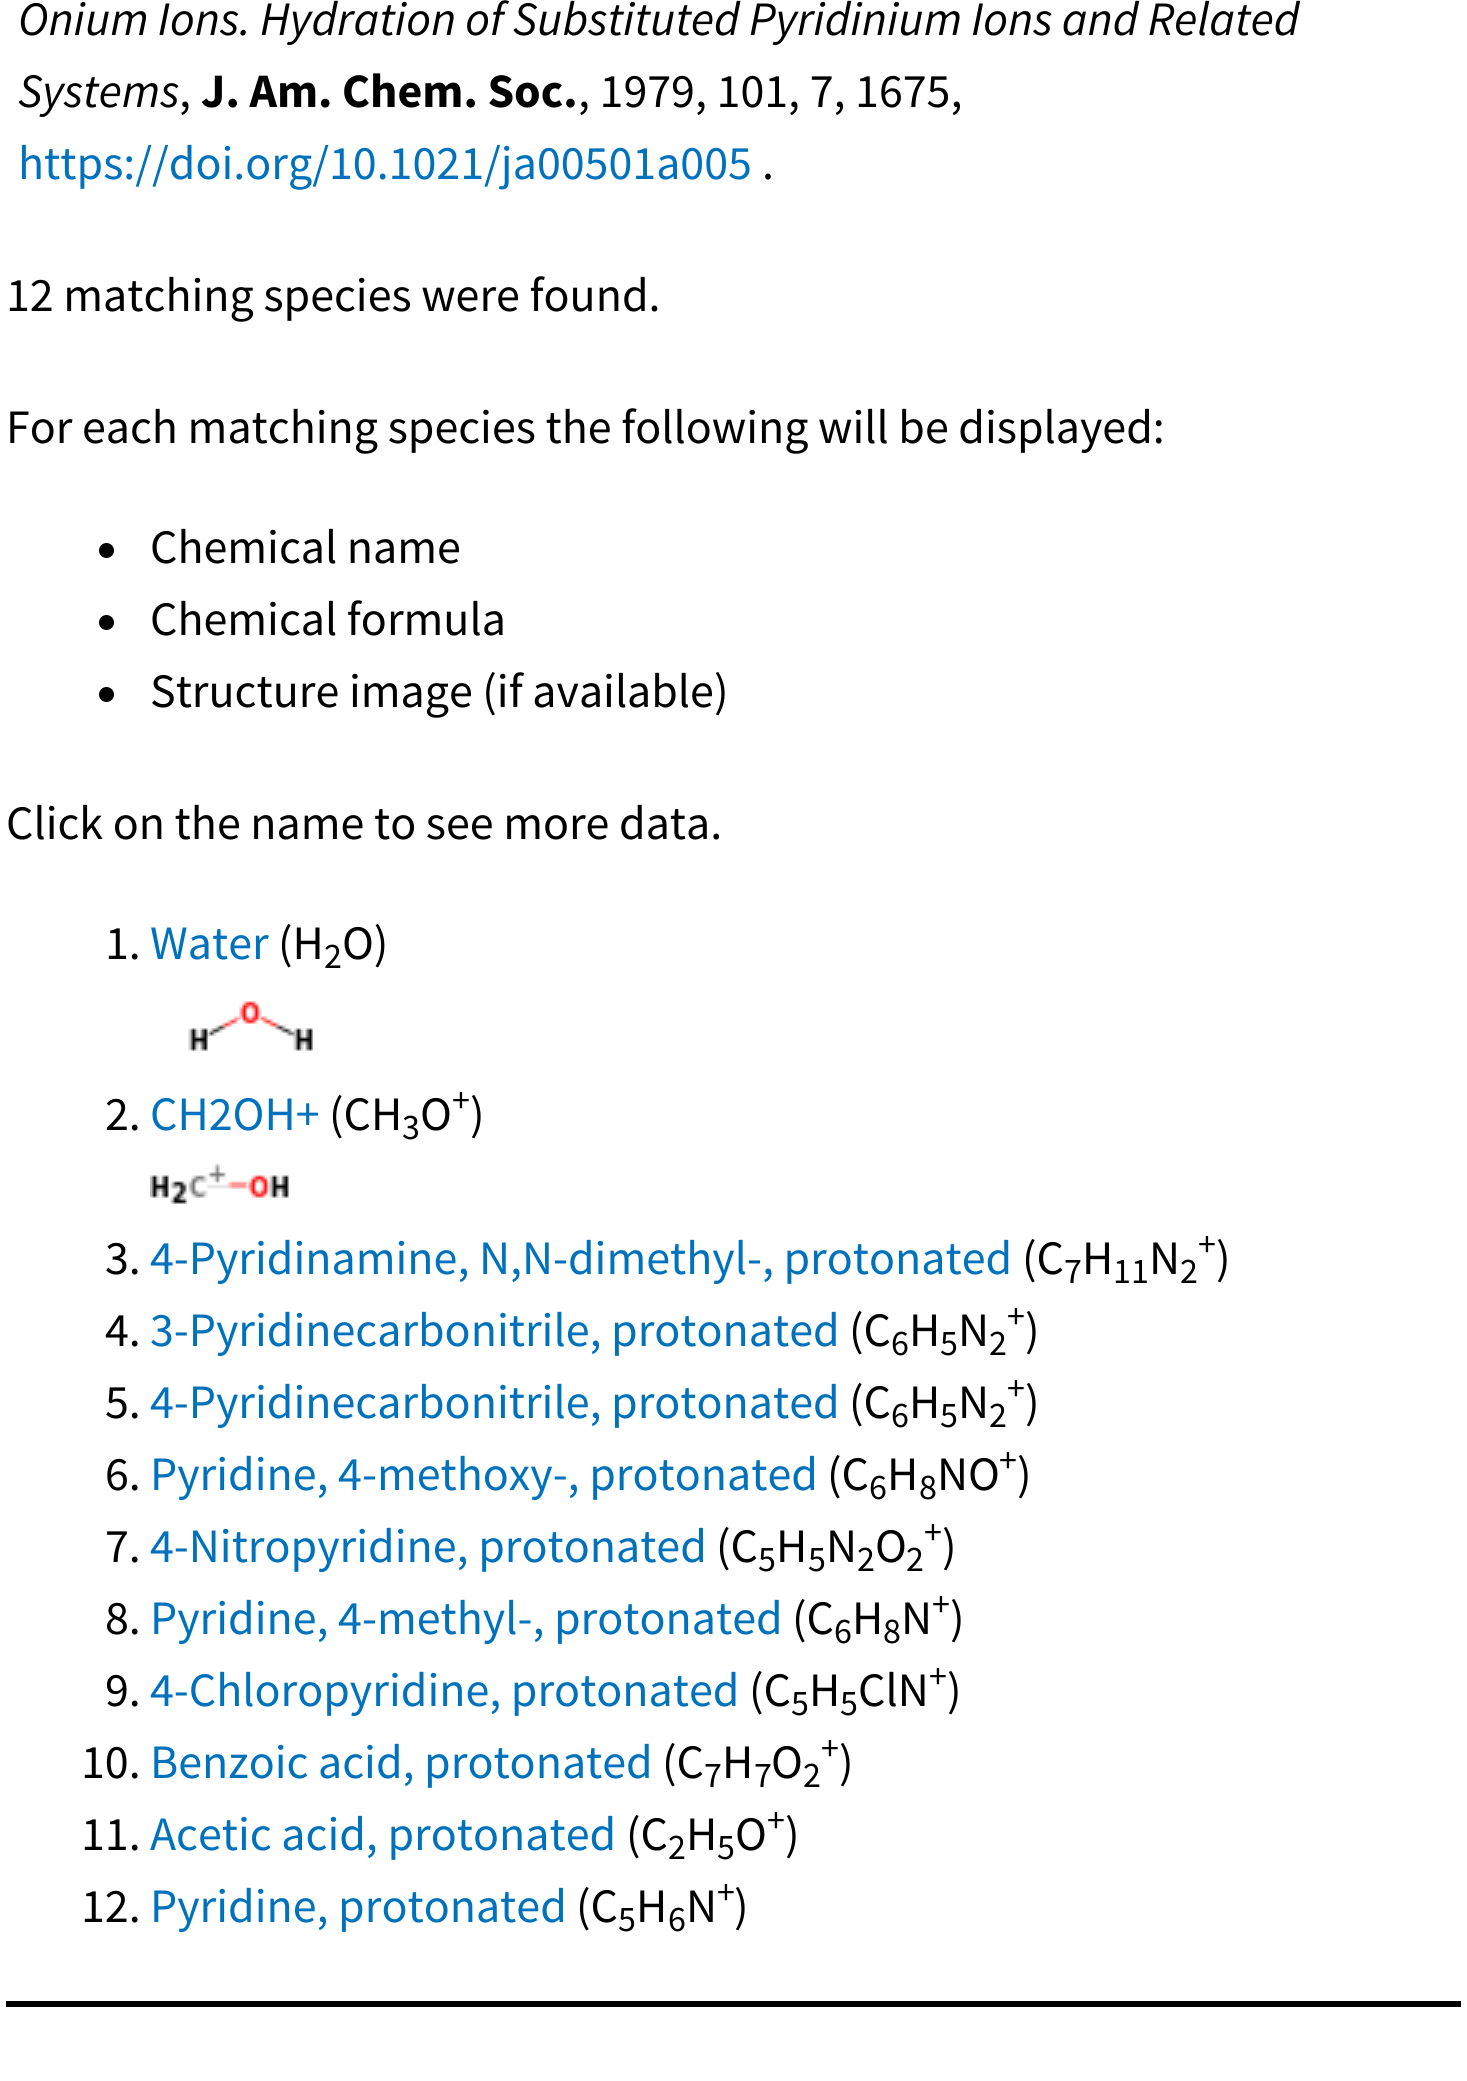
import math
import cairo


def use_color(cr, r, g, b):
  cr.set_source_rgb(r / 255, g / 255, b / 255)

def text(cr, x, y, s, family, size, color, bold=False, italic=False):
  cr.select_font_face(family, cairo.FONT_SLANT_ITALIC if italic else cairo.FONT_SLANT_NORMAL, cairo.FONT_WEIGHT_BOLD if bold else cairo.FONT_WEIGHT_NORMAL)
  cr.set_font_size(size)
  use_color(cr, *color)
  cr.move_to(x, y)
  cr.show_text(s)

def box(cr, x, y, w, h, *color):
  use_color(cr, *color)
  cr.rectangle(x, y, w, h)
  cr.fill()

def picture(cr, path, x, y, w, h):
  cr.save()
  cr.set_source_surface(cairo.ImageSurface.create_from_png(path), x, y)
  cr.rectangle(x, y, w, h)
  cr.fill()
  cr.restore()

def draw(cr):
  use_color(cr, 255, 255, 255)
  cr.paint()
  use_color(cr, 0, 0, 0)
  cr.arc(106.5, 550.5, 7.5, 0, 2 * math.pi)
  cr.fill()
  cr.arc(106.5, 622.5, 7.5, 0, 2 * math.pi)
  cr.fill()
  cr.arc(106.5, 694.5, 7.5, 0, 2 * math.pi)
  cr.fill()
  picture(cr, "img_01.png", 188, 1001, 125, 50)
  picture(cr, "img_02.png", 150, 1163, 139, 41)
  box(cr, 6, 2001, 1455, 6, 0, 0, 0)
  text(cr, 18, 35, "Onium Ions. Hydration of Substituted Pyridinium Ions and Related", "Source Sans Pro", 48, (0, 0, 0), italic=True)
  text(cr, 18, 107, "Systems", "Source Sans Pro", 48, (0, 0, 0), italic=True)
  text(cr, 179, 107, ",", "Source Sans Pro", 48, (0, 0, 0))
  text(cr, 201, 107, "J. Am. Chem. Soc.", "Source Sans Pro", 48, (0, 0, 0), bold=True)
  text(cr, 578, 107, ", 1979, 101, 7, 1675,", "Source Sans Pro", 48, (0, 0, 0))
  text(cr, 18, 179, "https://doi.org/10.1021/ja00501a005", "Source Sans Pro", 48, (0, 113, 188))
  text(cr, 762, 179, ".", "Source Sans Pro", 48, (0, 0, 0))
  text(cr, 6, 311, "12 matching species were found.", "Source Sans Pro", 48, (0, 0, 0))
  text(cr, 6, 443, "For each matching species the following will be displayed:", "Source Sans Pro", 48, (0, 0, 0))
  text(cr, 150, 563, "Chemical name", "Source Sans Pro", 48, (0, 0, 0))
  text(cr, 150, 635, "Chemical formula", "Source Sans Pro", 48, (0, 0, 0))
  text(cr, 150, 707, "Structure image (if available)", "Source Sans Pro", 48, (0, 0, 0))
  text(cr, 6, 839, "Click on the name to see more data.", "Source Sans Pro", 48, (0, 0, 0))
  text(cr, 105, 959, "1.", "Source Sans Pro", 48, (0, 0, 0))
  text(cr, 150, 959, "Water", "Source Sans Pro", 48, (0, 113, 188))
  text(cr, 278, 959, "(H", "Source Sans Pro", 48, (0, 0, 0))
  text(cr, 324, 968, "2", "Source Sans Pro", 36, (0, 0, 0))
  text(cr, 342, 959, "O)", "Source Sans Pro", 48, (0, 0, 0))
  text(cr, 105, 1130, "2.", "Source Sans Pro", 48, (0, 0, 0))
  text(cr, 150, 1130, "CH2OH+", "Source Sans Pro", 48, (0, 113, 188))
  text(cr, 329, 1130, "(CH", "Source Sans Pro", 48, (0, 0, 0))
  text(cr, 402, 1139, "3", "Source Sans Pro", 36, (0, 0, 0))
  text(cr, 420, 1130, "O", "Source Sans Pro", 48, (0, 0, 0))
  text(cr, 452, 1112, "+", "Source Sans Pro", 36, (0, 0, 0))
  text(cr, 470, 1130, ")", "Source Sans Pro", 48, (0, 0, 0))
  text(cr, 105, 1274, "3.", "Source Sans Pro", 48, (0, 0, 0))
  text(cr, 150, 1274, "4-Pyridinamine, N,N-dimethyl-, protonated", "Source Sans Pro", 48, (0, 113, 188))
  text(cr, 1022, 1274, "(C", "Source Sans Pro", 48, (0, 0, 0))
  text(cr, 1064, 1283, "7", "Source Sans Pro", 36, (0, 0, 0))
  text(cr, 1082, 1274, "H", "Source Sans Pro", 48, (0, 0, 0))
  text(cr, 1113, 1283, "11", "Source Sans Pro", 36, (0, 0, 0))
  text(cr, 1149, 1274, "N", "Source Sans Pro", 48, (0, 0, 0))
  text(cr, 1180, 1283, "2", "Source Sans Pro", 36, (0, 0, 0))
  text(cr, 1198, 1256, "+", "Source Sans Pro", 36, (0, 0, 0))
  text(cr, 1216, 1274, ")", "Source Sans Pro", 48, (0, 0, 0))
  text(cr, 105, 1346, "4.", "Source Sans Pro", 48, (0, 0, 0))
  text(cr, 150, 1346, "3-Pyridinecarbonitrile, protonated", "Source Sans Pro", 48, (0, 113, 188))
  text(cr, 849, 1346, "(C", "Source Sans Pro", 48, (0, 0, 0))
  text(cr, 891, 1355, "6", "Source Sans Pro", 36, (0, 0, 0))
  text(cr, 909, 1346, "H", "Source Sans Pro", 48, (0, 0, 0))
  text(cr, 940, 1355, "5", "Source Sans Pro", 36, (0, 0, 0))
  text(cr, 958, 1346, "N", "Source Sans Pro", 48, (0, 0, 0))
  text(cr, 989, 1355, "2", "Source Sans Pro", 36, (0, 0, 0))
  text(cr, 1007, 1328, "+", "Source Sans Pro", 36, (0, 0, 0))
  text(cr, 1025, 1346, ")", "Source Sans Pro", 48, (0, 0, 0))
  text(cr, 105, 1418, "5.", "Source Sans Pro", 48, (0, 0, 0))
  text(cr, 150, 1418, "4-Pyridinecarbonitrile, protonated", "Source Sans Pro", 48, (0, 113, 188))
  text(cr, 849, 1418, "(C", "Source Sans Pro", 48, (0, 0, 0))
  text(cr, 891, 1427, "6", "Source Sans Pro", 36, (0, 0, 0))
  text(cr, 909, 1418, "H", "Source Sans Pro", 48, (0, 0, 0))
  text(cr, 940, 1427, "5", "Source Sans Pro", 36, (0, 0, 0))
  text(cr, 958, 1418, "N", "Source Sans Pro", 48, (0, 0, 0))
  text(cr, 989, 1427, "2", "Source Sans Pro", 36, (0, 0, 0))
  text(cr, 1007, 1400, "+", "Source Sans Pro", 36, (0, 0, 0))
  text(cr, 1025, 1418, ")", "Source Sans Pro", 48, (0, 0, 0))
  text(cr, 105, 1490, "6.", "Source Sans Pro", 48, (0, 0, 0))
  text(cr, 150, 1490, "Pyridine, 4-methoxy-, protonated", "Source Sans Pro", 48, (0, 113, 188))
  text(cr, 827, 1490, "(C", "Source Sans Pro", 48, (0, 0, 0))
  text(cr, 869, 1499, "6", "Source Sans Pro", 36, (0, 0, 0))
  text(cr, 887, 1490, "H", "Source Sans Pro", 48, (0, 0, 0))
  text(cr, 919, 1499, "8", "Source Sans Pro", 36, (0, 0, 0))
  text(cr, 937, 1490, "NO", "Source Sans Pro", 48, (0, 0, 0))
  text(cr, 999, 1472, "+", "Source Sans Pro", 36, (0, 0, 0))
  text(cr, 1017, 1490, ")", "Source Sans Pro", 48, (0, 0, 0))
  text(cr, 105, 1562, "7.", "Source Sans Pro", 48, (0, 0, 0))
  text(cr, 150, 1562, "4-Nitropyridine, protonated", "Source Sans Pro", 48, (0, 113, 188))
  text(cr, 716, 1562, "(C", "Source Sans Pro", 48, (0, 0, 0))
  text(cr, 758, 1571, "5", "Source Sans Pro", 36, (0, 0, 0))
  text(cr, 776, 1562, "H", "Source Sans Pro", 48, (0, 0, 0))
  text(cr, 808, 1571, "5", "Source Sans Pro", 36, (0, 0, 0))
  text(cr, 826, 1562, "N", "Source Sans Pro", 48, (0, 0, 0))
  text(cr, 857, 1571, "2", "Source Sans Pro", 36, (0, 0, 0))
  text(cr, 875, 1562, "O", "Source Sans Pro", 48, (0, 0, 0))
  text(cr, 906, 1571, "2", "Source Sans Pro", 36, (0, 0, 0))
  text(cr, 924, 1544, "+", "Source Sans Pro", 36, (0, 0, 0))
  text(cr, 942, 1562, ")", "Source Sans Pro", 48, (0, 0, 0))
  text(cr, 105, 1634, "8.", "Source Sans Pro", 48, (0, 0, 0))
  text(cr, 150, 1634, "Pyridine, 4-methyl-, protonated", "Source Sans Pro", 48, (0, 113, 188))
  text(cr, 792, 1634, "(C", "Source Sans Pro", 48, (0, 0, 0))
  text(cr, 834, 1643, "6", "Source Sans Pro", 36, (0, 0, 0))
  text(cr, 852, 1634, "H", "Source Sans Pro", 48, (0, 0, 0))
  text(cr, 883, 1643, "8", "Source Sans Pro", 36, (0, 0, 0))
  text(cr, 901, 1634, "N", "Source Sans Pro", 48, (0, 0, 0))
  text(cr, 932, 1616, "+", "Source Sans Pro", 36, (0, 0, 0))
  text(cr, 950, 1634, ")", "Source Sans Pro", 48, (0, 0, 0))
  text(cr, 105, 1706, "9.", "Source Sans Pro", 48, (0, 0, 0))
  text(cr, 150, 1706, "4-Chloropyridine, protonated", "Source Sans Pro", 48, (0, 113, 188))
  text(cr, 749, 1706, "(C", "Source Sans Pro", 48, (0, 0, 0))
  text(cr, 791, 1715, "5", "Source Sans Pro", 36, (0, 0, 0))
  text(cr, 809, 1706, "H", "Source Sans Pro", 48, (0, 0, 0))
  text(cr, 840, 1715, "5", "Source Sans Pro", 36, (0, 0, 0))
  text(cr, 858, 1706, "ClN", "Source Sans Pro", 48, (0, 0, 0))
  text(cr, 929, 1688, "+", "Source Sans Pro", 36, (0, 0, 0))
  text(cr, 947, 1706, ")", "Source Sans Pro", 48, (0, 0, 0))
  text(cr, 81, 1778, "10.", "Source Sans Pro", 48, (0, 0, 0))
  text(cr, 150, 1778, "Benzoic acid, protonated", "Source Sans Pro", 48, (0, 113, 188))
  text(cr, 662, 1778, "(C", "Source Sans Pro", 48, (0, 0, 0))
  text(cr, 704, 1787, "7", "Source Sans Pro", 36, (0, 0, 0))
  text(cr, 722, 1778, "H", "Source Sans Pro", 48, (0, 0, 0))
  text(cr, 754, 1787, "7", "Source Sans Pro", 36, (0, 0, 0))
  text(cr, 771, 1778, "O", "Source Sans Pro", 48, (0, 0, 0))
  text(cr, 803, 1787, "2", "Source Sans Pro", 36, (0, 0, 0))
  text(cr, 821, 1760, "+", "Source Sans Pro", 36, (0, 0, 0))
  text(cr, 839, 1778, ")", "Source Sans Pro", 48, (0, 0, 0))
  text(cr, 81, 1850, "11.", "Source Sans Pro", 48, (0, 0, 0))
  text(cr, 150, 1850, "Acetic acid, protonated", "Source Sans Pro", 48, (0, 113, 188))
  text(cr, 626, 1850, "(C", "Source Sans Pro", 48, (0, 0, 0))
  text(cr, 668, 1859, "2", "Source Sans Pro", 36, (0, 0, 0))
  text(cr, 686, 1850, "H", "Source Sans Pro", 48, (0, 0, 0))
  text(cr, 717, 1859, "5", "Source Sans Pro", 36, (0, 0, 0))
  text(cr, 735, 1850, "O", "Source Sans Pro", 48, (0, 0, 0))
  text(cr, 767, 1832, "+", "Source Sans Pro", 36, (0, 0, 0))
  text(cr, 785, 1850, ")", "Source Sans Pro", 48, (0, 0, 0))
  text(cr, 81, 1922, "12.", "Source Sans Pro", 48, (0, 0, 0))
  text(cr, 150, 1922, "Pyridine, protonated", "Source Sans Pro", 48, (0, 113, 188))
  text(cr, 576, 1922, "(C", "Source Sans Pro", 48, (0, 0, 0))
  text(cr, 618, 1931, "5", "Source Sans Pro", 36, (0, 0, 0))
  text(cr, 636, 1922, "H", "Source Sans Pro", 48, (0, 0, 0))
  text(cr, 668, 1931, "6", "Source Sans Pro", 36, (0, 0, 0))
  text(cr, 686, 1922, "N", "Source Sans Pro", 48, (0, 0, 0))
  text(cr, 717, 1904, "+", "Source Sans Pro", 36, (0, 0, 0))
  text(cr, 734, 1922, ")", "Source Sans Pro", 48, (0, 0, 0))


surface = cairo.ImageSurface(cairo.FORMAT_RGB24, 1467, 2081)
cr = cairo.Context(surface)
options = cairo.FontOptions()
options.set_hint_metrics(cairo.HINT_METRICS_OFF)
options.set_hint_style(cairo.HINT_STYLE_NONE)
cr.set_font_options(options)
cr.set_miter_limit(4)
draw(cr)
surface.write_to_png("out.png")
